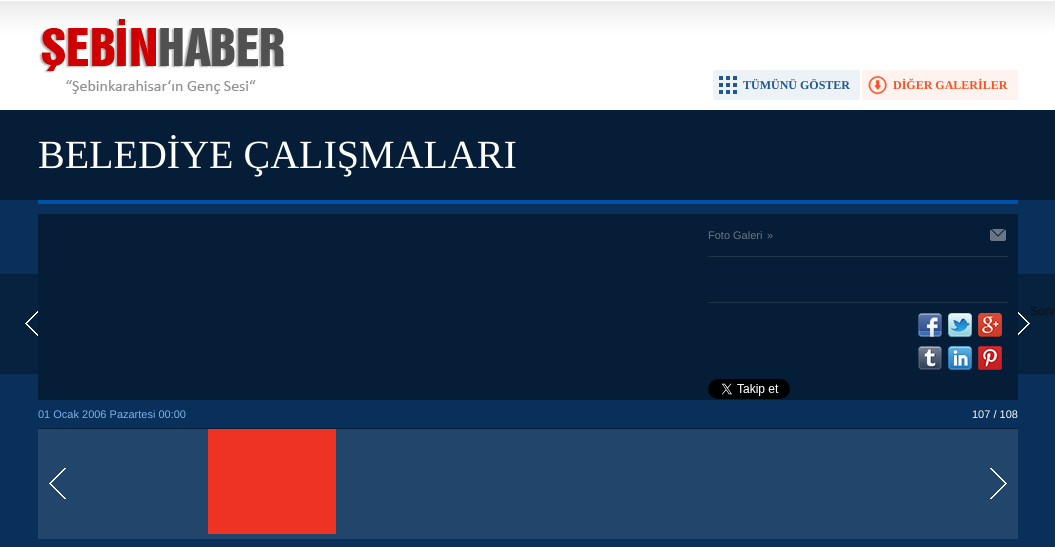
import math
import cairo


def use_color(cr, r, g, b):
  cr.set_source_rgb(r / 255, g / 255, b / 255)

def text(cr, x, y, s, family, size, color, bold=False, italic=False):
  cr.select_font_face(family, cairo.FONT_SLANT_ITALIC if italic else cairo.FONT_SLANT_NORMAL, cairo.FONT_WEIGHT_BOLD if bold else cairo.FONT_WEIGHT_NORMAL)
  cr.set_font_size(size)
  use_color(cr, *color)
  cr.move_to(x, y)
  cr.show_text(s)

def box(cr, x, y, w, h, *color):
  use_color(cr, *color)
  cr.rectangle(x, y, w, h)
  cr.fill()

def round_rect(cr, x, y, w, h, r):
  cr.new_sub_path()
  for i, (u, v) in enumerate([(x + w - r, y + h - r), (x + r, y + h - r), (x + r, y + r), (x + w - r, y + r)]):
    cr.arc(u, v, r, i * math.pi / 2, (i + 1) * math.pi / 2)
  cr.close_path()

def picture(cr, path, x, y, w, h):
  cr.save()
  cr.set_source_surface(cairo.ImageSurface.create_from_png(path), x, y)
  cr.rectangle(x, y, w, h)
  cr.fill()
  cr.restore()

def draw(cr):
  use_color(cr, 8, 48, 90)
  cr.paint()
  picture(cr, "img_01.png", 0, 0, 1055, 200)
  box(cr, 0, 274, 38, 100, 6, 34, 63)
  picture(cr, "img_02.png", 25, 311, 13, 25)
  picture(cr, "img_03.png", 39, 19, 245, 75)
  use_color(cr, 237, 242, 247)
  round_rect(cr, 713, 70, 147, 30, 2)
  cr.fill()
  picture(cr, "img_04.png", 719, 76, 18, 18)
  use_color(cr, 255, 243, 239)
  round_rect(cr, 862, 70, 156, 30, 2)
  cr.fill()
  picture(cr, "img_05.png", 868, 75, 19, 20)
  box(cr, 38, 200, 980, 4, 0, 82, 168)
  box(cr, 38, 214, 980, 186, 5, 29, 54)
  picture(cr, "img_06.png", 990, 229, 16, 13)
  box(cr, 708, 256, 300, 1, 30, 52, 74)
  box(cr, 708, 302, 300, 1, 30, 52, 74)
  picture(cr, "img_07.png", 918, 313, 24, 24)
  picture(cr, "img_08.png", 948, 313, 24, 24)
  picture(cr, "img_09.png", 978, 313, 24, 24)
  picture(cr, "img_10.png", 918, 346, 24, 24)
  picture(cr, "img_11.png", 948, 346, 24, 24)
  picture(cr, "img_12.png", 978, 346, 24, 24)
  picture(cr, "img_13.png", 708, 379, 82, 20)
  box(cr, 38, 429, 980, 110, 33, 69, 107)
  box(cr, 38, 428, 980, 1, 5, 29, 54)
  picture(cr, "img_14.png", 49, 468, 17, 31)
  box(cr, 208, 429, 128, 105, 238, 50, 36)
  picture(cr, "img_15.png", 990, 468, 17, 31)
  box(cr, 1018, 274, 37, 100, 6, 34, 63)
  picture(cr, "img_16.png", 1018, 312, 12, 23)
  text(cr, 743, 89, "TÜMÜNÜ GÖSTER", "Liberation Serif", 12, (33, 86, 142), bold=True)
  text(cr, 893, 89, "DİĞER GALERİLER", "Liberation Serif", 12, (253, 79, 32), bold=True)
  text(cr, 38, 168, "BELEDİYE ÇALIŞMALARI", "Liberation Serif", 40, (255, 255, 255))
  text(cr, 708, 239, "Foto Galeri", "Liberation Sans", 11, (105, 119, 134))
  text(cr, 767, 239, "»", "Liberation Sans", 11, (105, 119, 134))
  text(cr, 38, 418, "01 Ocak 2006 Pazartesi 00:00", "Liberation Sans", 11, (125, 178, 233))
  text(cr, 972, 418, "107 / 108", "Liberation Sans", 11, (255, 255, 255))
  text(cr, 1030, 315, "Sonr", "Liberation Sans", 12, (15, 15, 15))


surface = cairo.ImageSurface(cairo.FORMAT_RGB24, 1055, 547)
cr = cairo.Context(surface)
options = cairo.FontOptions()
options.set_hint_metrics(cairo.HINT_METRICS_OFF)
options.set_hint_style(cairo.HINT_STYLE_NONE)
cr.set_font_options(options)
cr.set_miter_limit(4)
draw(cr)
surface.write_to_png("out.png")
